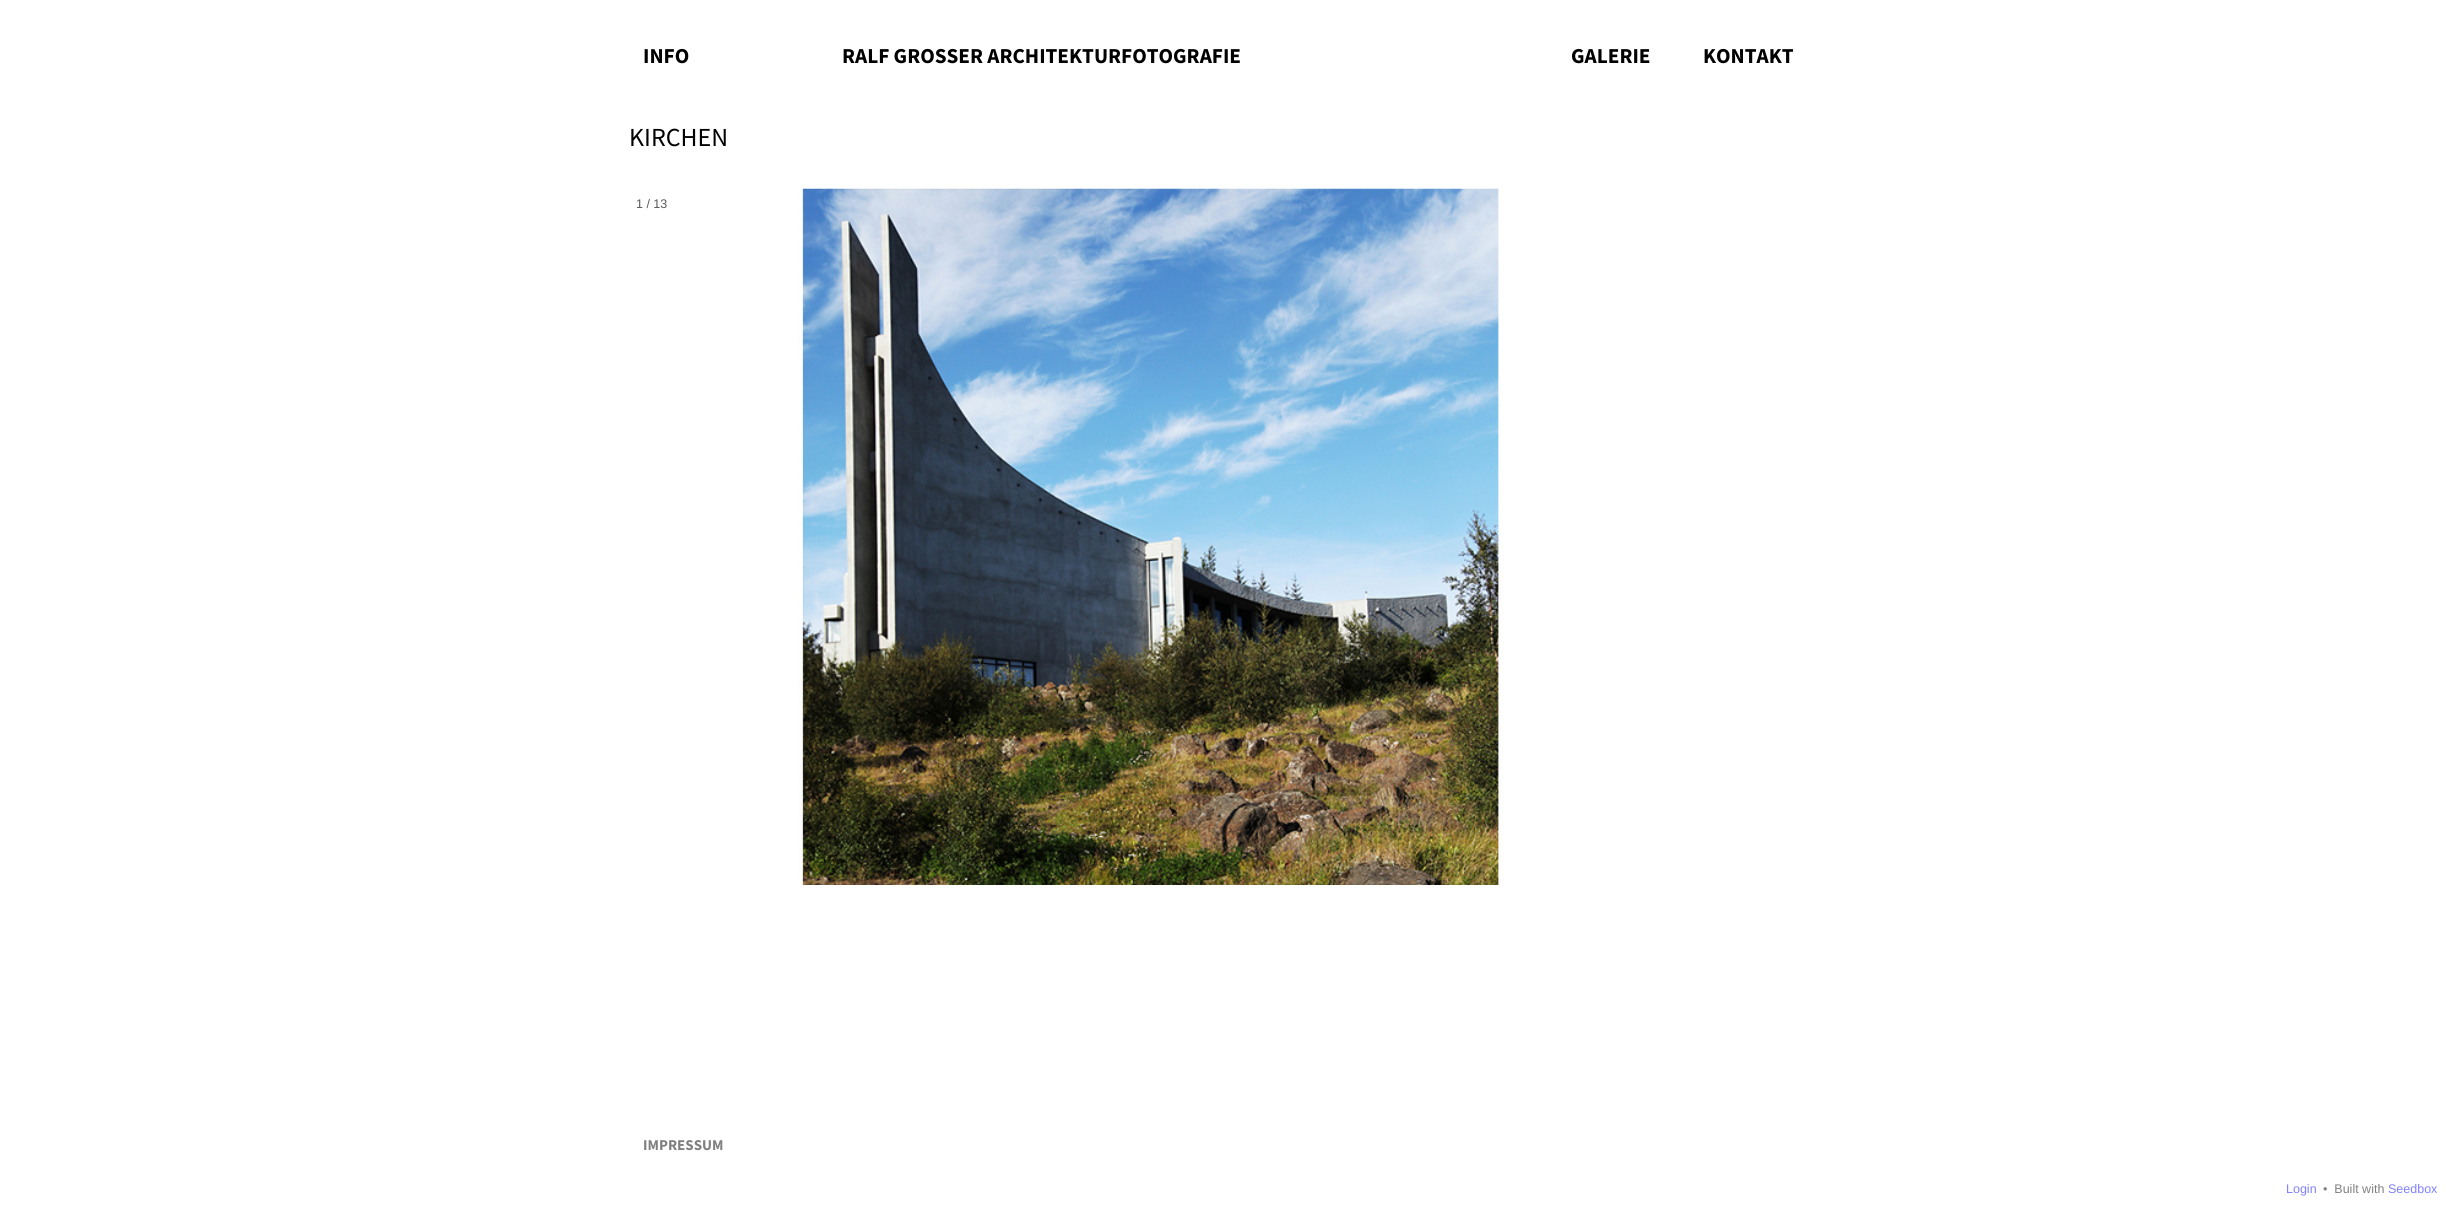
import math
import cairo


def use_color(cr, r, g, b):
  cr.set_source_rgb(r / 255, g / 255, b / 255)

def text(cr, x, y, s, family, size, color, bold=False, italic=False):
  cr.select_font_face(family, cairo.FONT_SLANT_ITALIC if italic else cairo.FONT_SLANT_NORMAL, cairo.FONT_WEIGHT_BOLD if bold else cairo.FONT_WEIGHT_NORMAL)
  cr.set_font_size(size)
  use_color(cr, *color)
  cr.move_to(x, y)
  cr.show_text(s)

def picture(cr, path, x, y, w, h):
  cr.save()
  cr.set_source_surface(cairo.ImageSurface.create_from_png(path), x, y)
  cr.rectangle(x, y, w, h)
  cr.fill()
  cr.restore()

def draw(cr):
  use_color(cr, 255, 255, 255)
  cr.paint()
  picture(cr, "img_01.png", 797, 188, 706, 697)
  text(cr, 643, 63, "INFO", "Source Sans Pro", 21.25, (0, 0, 0), bold=True)
  text(cr, 842, 63, "RALF GROSSER ARCHITEKTURFOTOGRAFIE", "Source Sans Pro", 21.25, (0, 0, 0), bold=True)
  text(cr, 1571, 63, "GALERIE", "Source Sans Pro", 21.25, (0, 0, 0), bold=True)
  text(cr, 1703, 63, "KONTAKT", "Source Sans Pro", 21.25, (0, 0, 0), bold=True)
  text(cr, 629, 146, "KIRCHEN", "Source Sans Pro", 26, (0, 0, 0))
  text(cr, 636, 208, "1 / 13", "Liberation Sans", 12.5, (89, 89, 89))
  text(cr, 643, 1150, "IMPRESSUM", "Source Sans Pro", 15, (128, 128, 128), bold=True)
  text(cr, 2286, 1193, "Login", "Liberation Sans", 12.5, (128, 128, 255))
  text(cr, 2323, 1193, "•  Built with", "Liberation Sans", 12.5, (128, 128, 128))
  text(cr, 2388, 1193, "Seedbox", "Liberation Sans", 12.5, (128, 128, 255))


surface = cairo.ImageSurface(cairo.FORMAT_RGB24, 2446, 1205)
cr = cairo.Context(surface)
options = cairo.FontOptions()
options.set_hint_metrics(cairo.HINT_METRICS_OFF)
options.set_hint_style(cairo.HINT_STYLE_NONE)
cr.set_font_options(options)
cr.set_miter_limit(4)
draw(cr)
surface.write_to_png("out.png")
